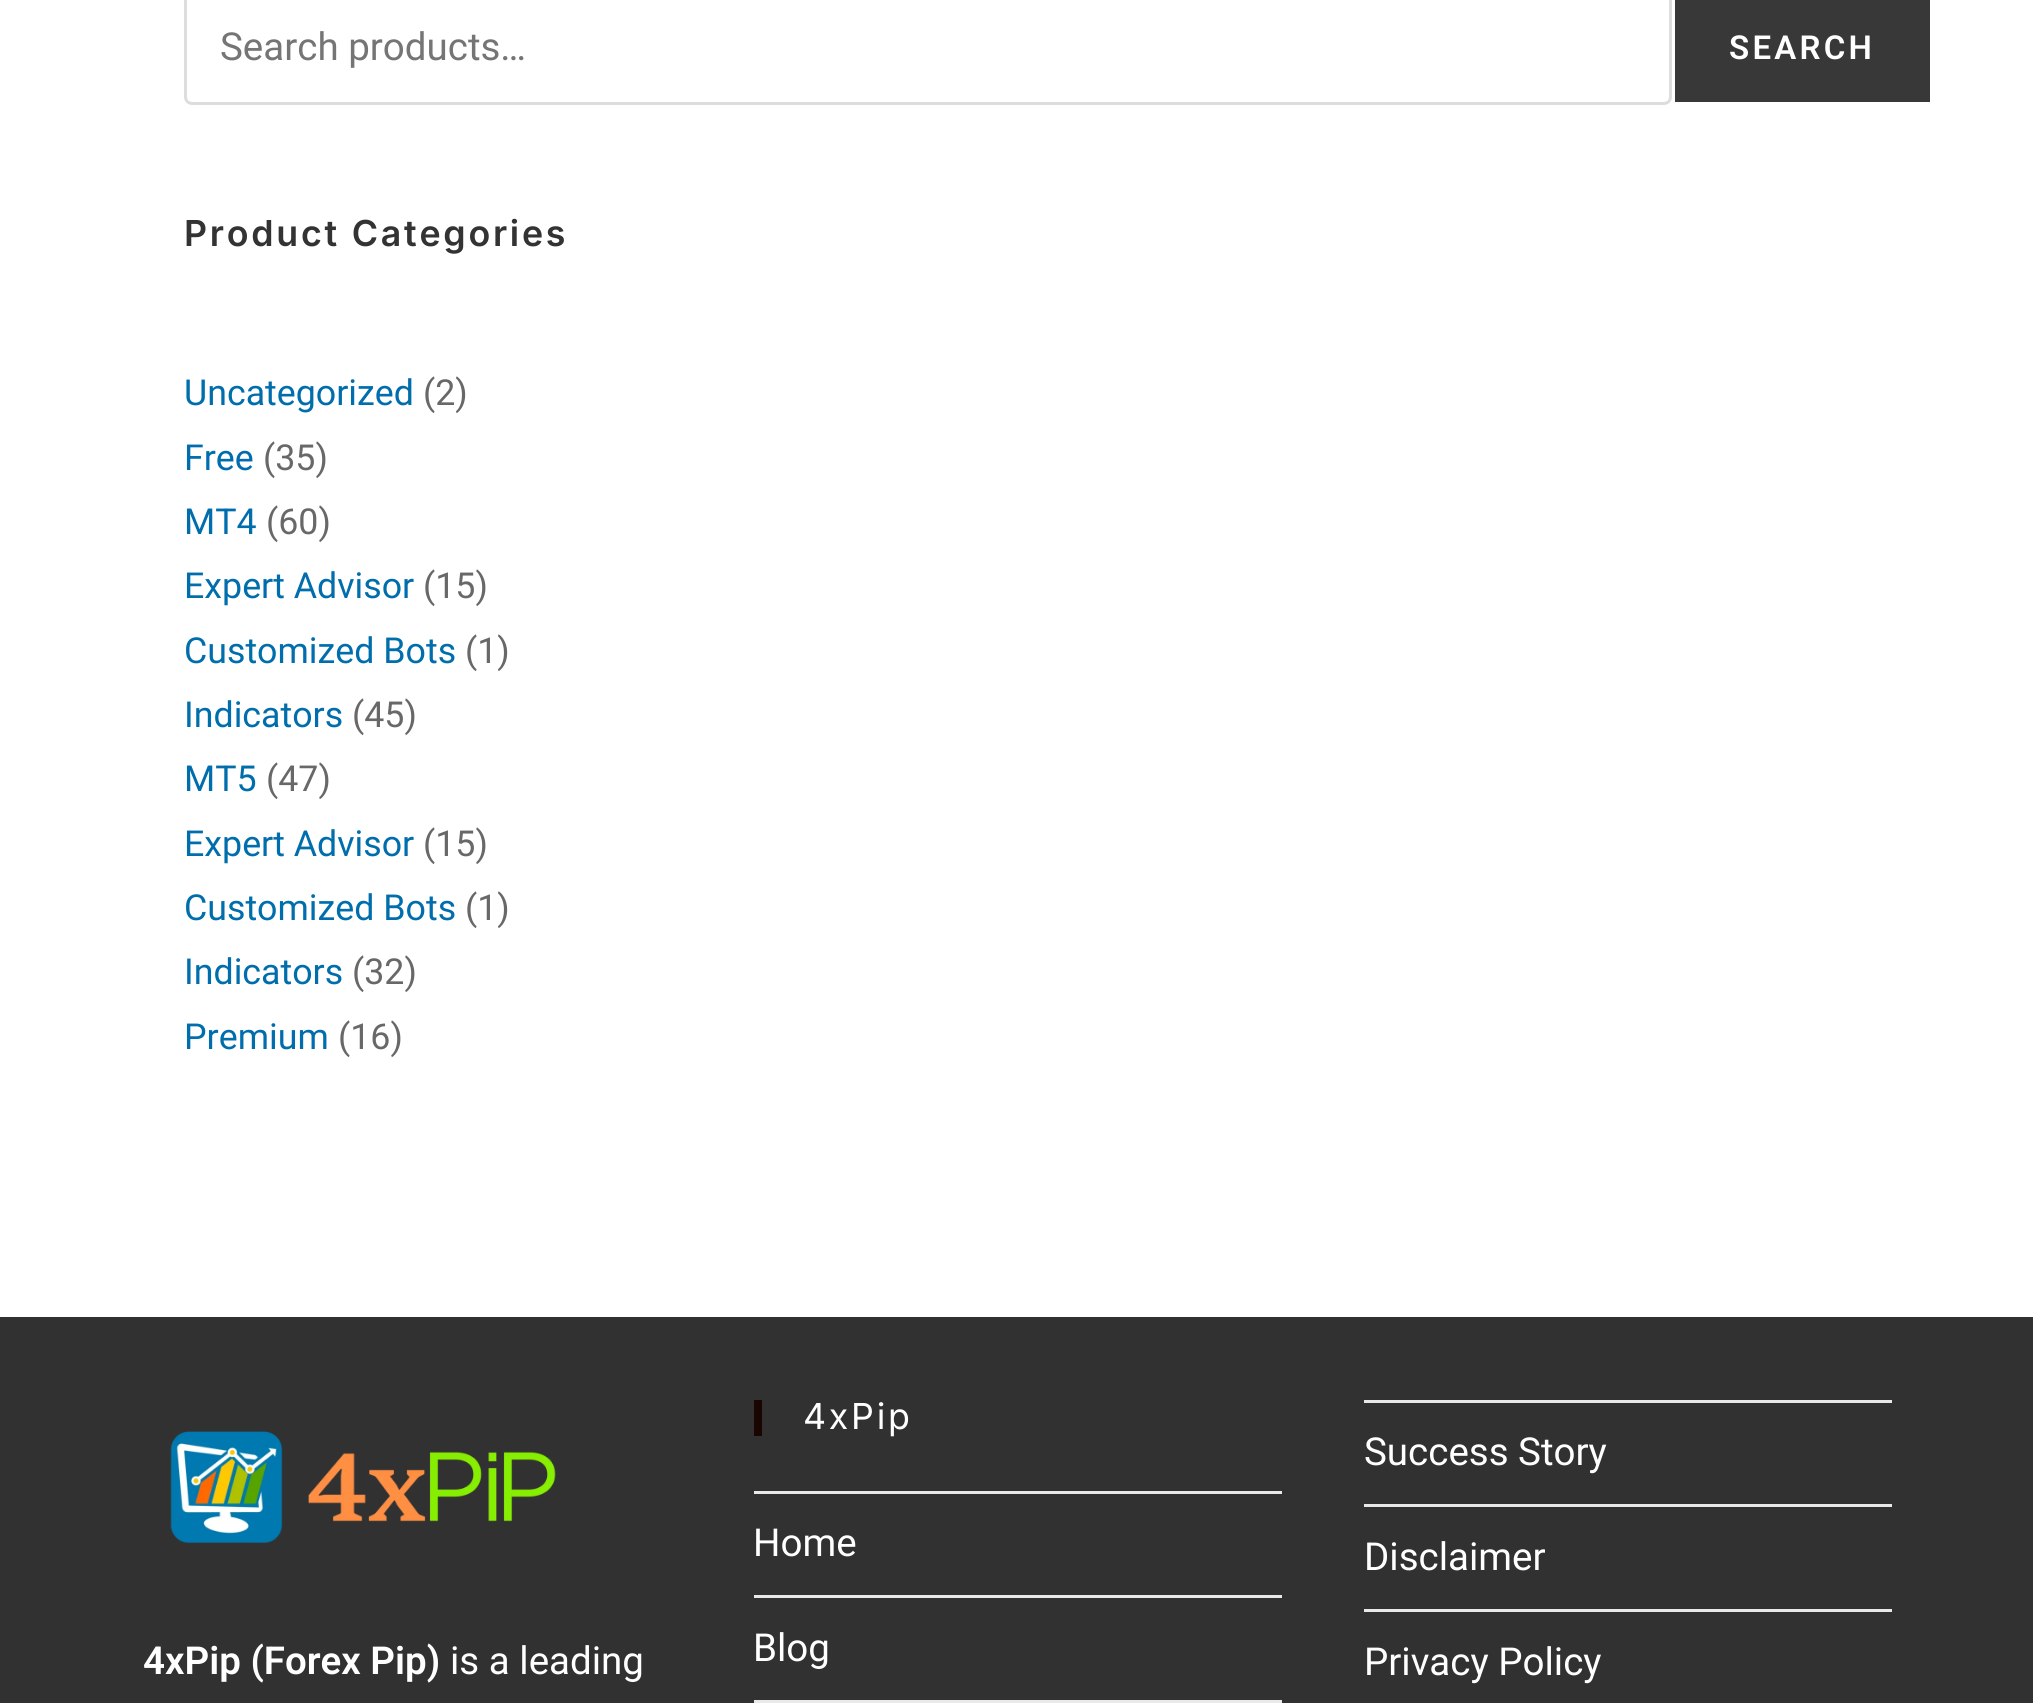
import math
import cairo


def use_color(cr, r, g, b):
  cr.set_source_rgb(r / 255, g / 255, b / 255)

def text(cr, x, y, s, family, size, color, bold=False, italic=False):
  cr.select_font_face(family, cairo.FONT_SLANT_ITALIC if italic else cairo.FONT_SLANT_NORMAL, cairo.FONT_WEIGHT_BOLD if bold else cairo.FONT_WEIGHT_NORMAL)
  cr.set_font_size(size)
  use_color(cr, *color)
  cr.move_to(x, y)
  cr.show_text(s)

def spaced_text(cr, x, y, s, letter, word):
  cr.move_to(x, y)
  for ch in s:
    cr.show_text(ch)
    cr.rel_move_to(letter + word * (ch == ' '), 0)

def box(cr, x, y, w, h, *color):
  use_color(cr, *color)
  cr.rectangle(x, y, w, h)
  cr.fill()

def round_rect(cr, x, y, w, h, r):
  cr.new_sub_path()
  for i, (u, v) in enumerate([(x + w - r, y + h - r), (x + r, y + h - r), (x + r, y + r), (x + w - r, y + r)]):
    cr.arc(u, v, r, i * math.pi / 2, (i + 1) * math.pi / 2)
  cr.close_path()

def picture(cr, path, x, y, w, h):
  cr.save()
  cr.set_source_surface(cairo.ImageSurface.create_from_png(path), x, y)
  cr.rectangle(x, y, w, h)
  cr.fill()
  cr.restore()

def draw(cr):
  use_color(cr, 255, 255, 255)
  cr.paint()
  round_rect(cr, 185.5, -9.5, 1485, 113, 6.5)
  use_color(cr, 221, 221, 221)
  cr.set_line_width(3)
  cr.stroke()
  box(cr, 1675, 0, 255, 102, 56, 56, 56)
  box(cr, 0, 1317, 2033, 386, 49, 49, 49)
  picture(cr, "img_01.png", 170, 1431, 386, 113)
  box(cr, 754, 1400, 8, 36, 25, 5, 2)
  box(cr, 754, 1491, 528, 3, 233, 233, 233)
  box(cr, 754, 1595, 528, 3, 233, 233, 233)
  box(cr, 754, 1700, 528, 3, 233, 233, 233)
  box(cr, 1364, 1400, 528, 3, 233, 233, 233)
  box(cr, 1364, 1504, 528, 3, 233, 233, 233)
  box(cr, 1364, 1609, 528, 3, 233, 233, 233)
  text(cr, 220, 60, "Search products…", "Roboto", 38.5, (117, 117, 117))
  cr.select_font_face("Roboto SemiBold")
  cr.set_font_size(33)
  use_color(cr, 255, 255, 255)
  spaced_text(cr, 1729, 59, "SEARCH", 3.25, 0)
  cr.select_font_face("Inter SemiBold")
  cr.set_font_size(35.75)
  use_color(cr, 51, 51, 51)
  spaced_text(cr, 184, 246, "Product Categories", 2.75, 0)
  text(cr, 184, 405, "Uncategorized", "Roboto", 35.75, (0, 109, 172))
  text(cr, 423, 405, "(2)", "Roboto", 35.75, (104, 104, 104))
  text(cr, 184, 470, "Free", "Roboto", 35.75, (0, 109, 172))
  text(cr, 263, 470, "(35)", "Roboto", 35.75, (104, 104, 104))
  text(cr, 184, 534, "MT4", "Roboto", 35.75, (0, 109, 172))
  text(cr, 266, 534, "(60)", "Roboto", 35.75, (104, 104, 104))
  text(cr, 184, 598, "Expert Advisor", "Roboto", 35.75, (0, 109, 172))
  text(cr, 423, 598, "(15)", "Roboto", 35.75, (104, 104, 104))
  text(cr, 184, 663, "Customized Bots", "Roboto", 35.75, (0, 109, 172))
  text(cr, 465, 663, "(1)", "Roboto", 35.75, (104, 104, 104))
  text(cr, 184, 727, "Indicators", "Roboto", 35.75, (0, 109, 172))
  text(cr, 352, 727, "(45)", "Roboto", 35.75, (104, 104, 104))
  text(cr, 184, 791, "MT5", "Roboto", 35.75, (0, 109, 172))
  text(cr, 266, 791, "(47)", "Roboto", 35.75, (104, 104, 104))
  text(cr, 184, 856, "Expert Advisor", "Roboto", 35.75, (0, 109, 172))
  text(cr, 423, 856, "(15)", "Roboto", 35.75, (104, 104, 104))
  text(cr, 184, 920, "Customized Bots", "Roboto", 35.75, (0, 109, 172))
  text(cr, 465, 920, "(1)", "Roboto", 35.75, (104, 104, 104))
  text(cr, 184, 984, "Indicators", "Roboto", 35.75, (0, 109, 172))
  text(cr, 352, 984, "(32)", "Roboto", 35.75, (104, 104, 104))
  text(cr, 184, 1049, "Premium", "Roboto", 35.75, (0, 109, 172))
  text(cr, 338, 1049, "(16)", "Roboto", 35.75, (104, 104, 104))
  text(cr, 143, 1674, "4xPip (Forex Pip)", "Roboto SemiBold", 38.5, (255, 255, 255))
  text(cr, 450, 1674, "is a leading", "Roboto", 38.5, (255, 255, 255))
  cr.select_font_face("Inter")
  cr.set_font_size(35.75)
  spaced_text(cr, 803, 1429, "4xPip", 2.75, 0)
  text(cr, 753, 1556, "Home", "Roboto", 38.5, (255, 255, 255))
  text(cr, 753, 1661, "Blog", "Roboto", 38.5, (255, 255, 255))
  text(cr, 1364, 1465, "Success Story", "Roboto", 38.5, (255, 255, 255))
  text(cr, 1364, 1570, "Disclaimer", "Roboto", 38.5, (255, 255, 255))
  text(cr, 1364, 1675, "Privacy Policy", "Roboto", 38.5, (255, 255, 255))


surface = cairo.ImageSurface(cairo.FORMAT_RGB24, 2033, 1703)
cr = cairo.Context(surface)
options = cairo.FontOptions()
options.set_hint_metrics(cairo.HINT_METRICS_OFF)
options.set_hint_style(cairo.HINT_STYLE_NONE)
cr.set_font_options(options)
cr.set_miter_limit(4)
draw(cr)
surface.write_to_png("out.png")
